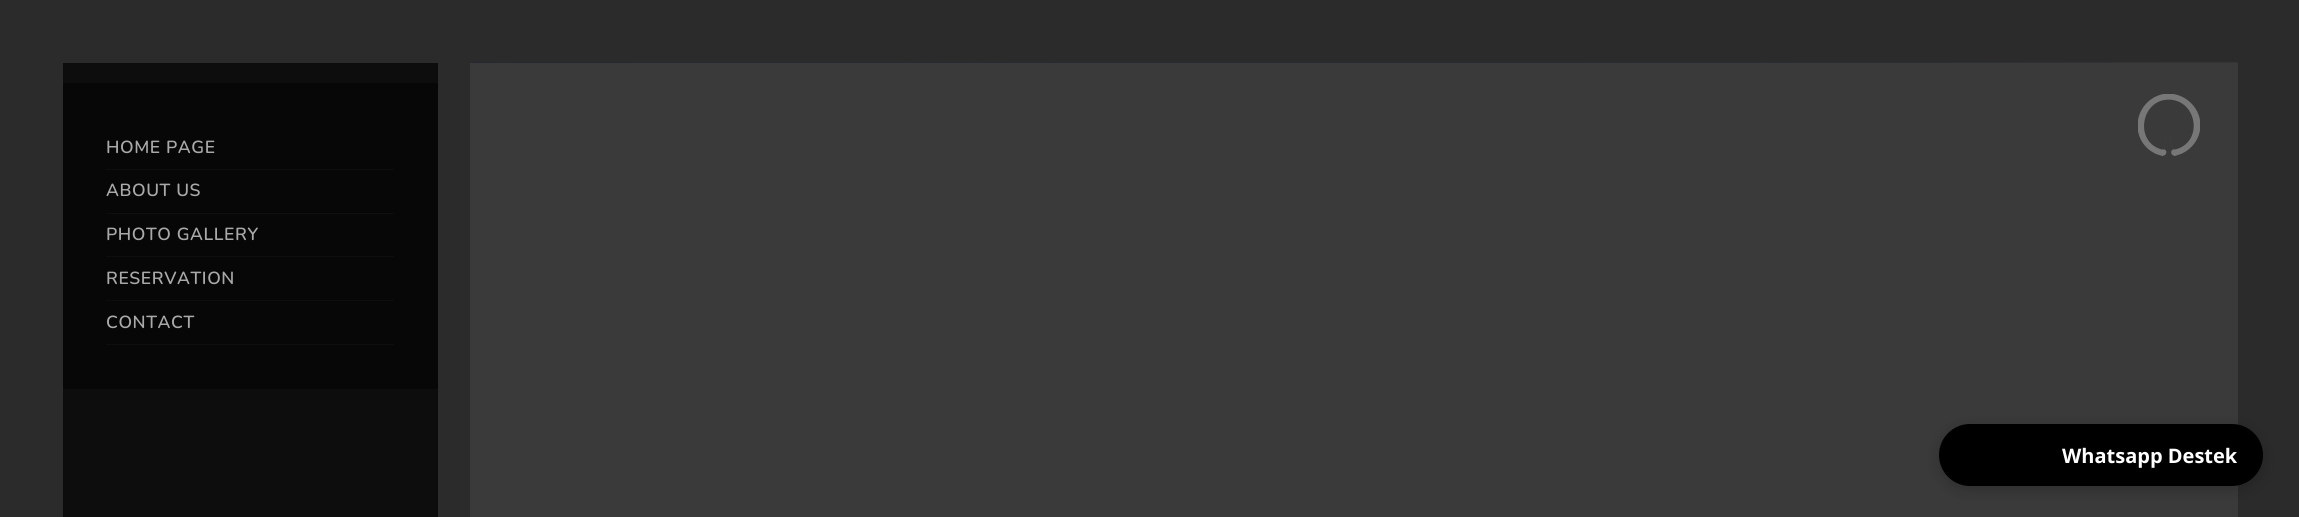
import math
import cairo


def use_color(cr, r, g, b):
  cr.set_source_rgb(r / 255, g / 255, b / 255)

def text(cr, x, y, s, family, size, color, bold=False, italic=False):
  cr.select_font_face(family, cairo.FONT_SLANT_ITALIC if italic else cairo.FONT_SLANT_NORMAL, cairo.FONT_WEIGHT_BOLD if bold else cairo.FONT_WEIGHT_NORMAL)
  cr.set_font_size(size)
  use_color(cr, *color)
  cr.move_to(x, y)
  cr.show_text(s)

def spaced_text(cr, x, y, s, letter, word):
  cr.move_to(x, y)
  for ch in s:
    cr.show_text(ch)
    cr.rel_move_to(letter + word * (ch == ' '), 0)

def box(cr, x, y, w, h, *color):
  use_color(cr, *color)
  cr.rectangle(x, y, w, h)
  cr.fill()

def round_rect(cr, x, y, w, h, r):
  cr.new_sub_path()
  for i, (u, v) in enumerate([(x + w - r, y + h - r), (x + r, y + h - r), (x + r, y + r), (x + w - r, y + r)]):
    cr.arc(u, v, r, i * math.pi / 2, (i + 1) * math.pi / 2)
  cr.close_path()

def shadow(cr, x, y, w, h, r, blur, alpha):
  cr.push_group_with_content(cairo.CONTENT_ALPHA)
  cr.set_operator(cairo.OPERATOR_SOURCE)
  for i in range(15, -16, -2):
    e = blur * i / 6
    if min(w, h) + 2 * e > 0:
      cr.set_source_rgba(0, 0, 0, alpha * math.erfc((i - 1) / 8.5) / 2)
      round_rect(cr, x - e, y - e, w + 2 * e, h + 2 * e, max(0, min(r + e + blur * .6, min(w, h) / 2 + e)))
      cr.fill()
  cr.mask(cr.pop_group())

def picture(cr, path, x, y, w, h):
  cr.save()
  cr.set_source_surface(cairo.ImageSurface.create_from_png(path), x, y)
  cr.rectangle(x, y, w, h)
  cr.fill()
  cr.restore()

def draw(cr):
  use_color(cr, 43, 43, 43)
  cr.paint()
  box(cr, 470, 63, 1768, 454, 58, 58, 58)
  cr.save()
  cr.rectangle(2138, 94, 31, 62)
  cr.clip()
  use_color(cr, 119, 119, 119)
  cr.set_fill_rule(cairo.FILL_RULE_EVEN_ODD)
  cr.new_path()
  cr.move_to(2174, 94)
  cr.line_to(2163, 156)
  cr.curve_to(2146, 153, 2135, 137, 2138, 120)
  cr.curve_to(2141, 103, 2157, 91, 2174, 94)
  cr.close_path()
  cr.move_to(2173, 100)
  cr.line_to(2164, 150)
  cr.curve_to(2132, 144, 2141, 95, 2173, 100)
  cr.close_path()
  cr.fill()
  cr.restore()
  use_color(cr, 119, 119, 119)
  cr.new_path()
  cr.move_to(2164, 149.5)
  cr.curve_to(2168, 150, 2166.5, 156.5, 2162.5, 155.5)
  cr.curve_to(2158.5, 155, 2160, 149, 2164, 149.5)
  cr.close_path()
  cr.fill()
  cr.save()
  cr.rectangle(2169, 94, 31, 62)
  cr.clip()
  cr.set_fill_rule(cairo.FILL_RULE_EVEN_ODD)
  cr.new_path()
  cr.move_to(2163, 94)
  cr.curve_to(2180, 91, 2197, 103, 2200, 120)
  cr.curve_to(2203, 137, 2191, 153, 2174, 156)
  cr.close_path()
  cr.move_to(2164, 100)
  cr.curve_to(2197, 95, 2206, 144, 2173, 150)
  cr.close_path()
  cr.fill()
  cr.restore()
  cr.new_path()
  cr.move_to(2173.5, 149.5)
  cr.curve_to(2177.5, 149, 2179, 155, 2175, 155.5)
  cr.curve_to(2171, 156.5, 2169.5, 150, 2173.5, 149.5)
  cr.close_path()
  cr.fill()
  box(cr, 63, 63, 375, 454, 13, 13, 13)
  box(cr, 63, 83, 375, 306, 7, 7, 7)
  box(cr, 106, 169, 288, 1, 14, 14, 14)
  box(cr, 106, 213, 288, 1, 14, 14, 14)
  box(cr, 106, 256, 288, 1, 14, 14, 14)
  box(cr, 106, 300, 288, 1, 14, 14, 14)
  box(cr, 106, 344, 288, 1, 14, 14, 14)
  picture(cr, "img_01.png", 470, 62, 1768, 1)
  use_color(cr, 0, 0, 0)
  shadow(cr, 1939, 428, 324, 62, 31, 7.5, 0.2)
  use_color(cr, 0, 0, 0)
  round_rect(cr, 1939, 424, 324, 62, 31)
  cr.fill()
  cr.select_font_face("Nunito SemiBold")
  cr.set_font_size(17.5)
  use_color(cr, 169, 169, 169)
  spaced_text(cr, 106, 153, "HOME PAGE", 0.6, 0)
  spaced_text(cr, 106, 196, "ABOUT US", 0.6, 0)
  spaced_text(cr, 106, 240, "PHOTO GALLERY", 0.6, 0)
  spaced_text(cr, 106, 284, "RESERVATION", 0.6, 0)
  spaced_text(cr, 106, 328, "CONTACT", 0.6, 0)
  text(cr, 2062, 463, "Whatsapp Destek", "Open Sans", 20, (255, 255, 255), bold=True)


surface = cairo.ImageSurface(cairo.FORMAT_RGB24, 2299, 517)
cr = cairo.Context(surface)
options = cairo.FontOptions()
options.set_hint_metrics(cairo.HINT_METRICS_OFF)
options.set_hint_style(cairo.HINT_STYLE_NONE)
cr.set_font_options(options)
cr.set_miter_limit(4)
draw(cr)
surface.write_to_png("out.png")
